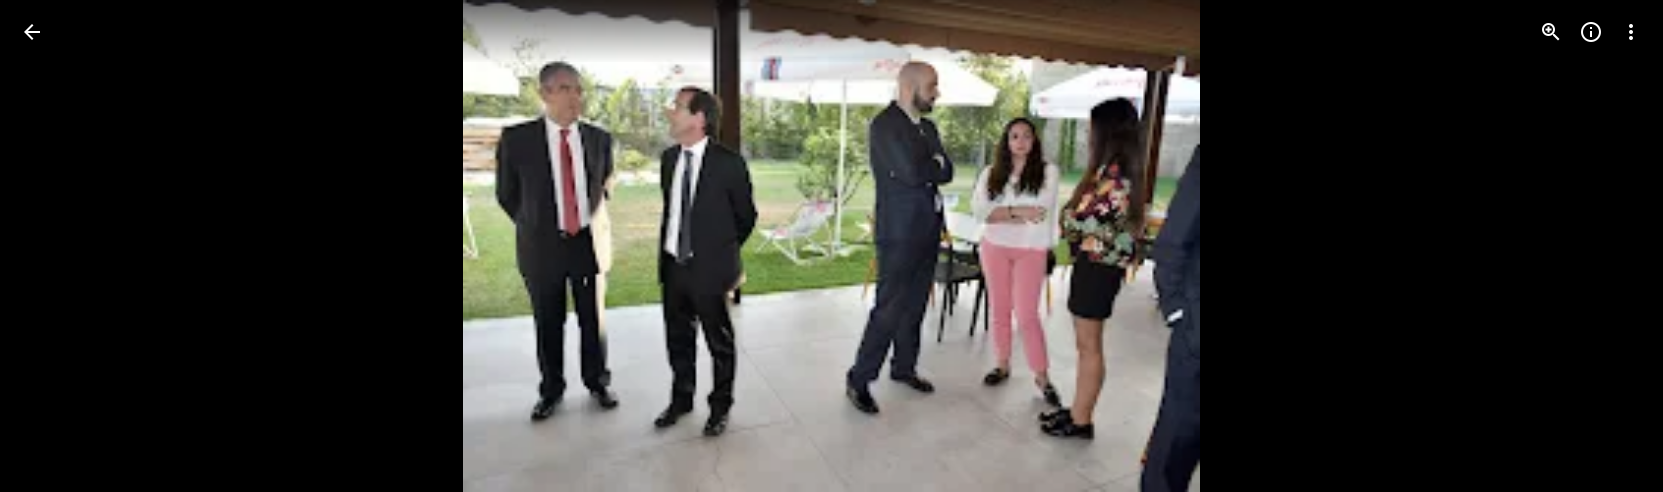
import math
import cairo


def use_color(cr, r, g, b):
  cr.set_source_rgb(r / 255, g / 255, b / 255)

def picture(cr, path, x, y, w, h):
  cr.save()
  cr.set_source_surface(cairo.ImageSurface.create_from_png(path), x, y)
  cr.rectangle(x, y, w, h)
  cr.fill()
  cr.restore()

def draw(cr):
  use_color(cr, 0, 0, 0)
  cr.paint()
  picture(cr, "img_05.png", 463, 0, 737, 492)
  gradient = cairo.LinearGradient(832, 0, 832, 64)
  gradient.add_color_stop_rgba(0, 0, 0, 0, 0.6)
  gradient.add_color_stop_rgba(1, 0, 0, 0, 0)
  cr.set_source(gradient)
  cr.rectangle(463, 0, 737, 62)
  cr.fill()
  picture(cr, "img_01.png", 24, 24, 16, 16)
  picture(cr, "img_02.png", 1542, 23, 18, 18)
  picture(cr, "img_03.png", 1581, 22, 20, 20)
  picture(cr, "img_04.png", 1629, 24, 4, 16)


surface = cairo.ImageSurface(cairo.FORMAT_RGB24, 1663, 492)
cr = cairo.Context(surface)
options = cairo.FontOptions()
options.set_hint_metrics(cairo.HINT_METRICS_OFF)
options.set_hint_style(cairo.HINT_STYLE_NONE)
cr.set_font_options(options)
cr.set_miter_limit(4)
draw(cr)
surface.write_to_png("out.png")
